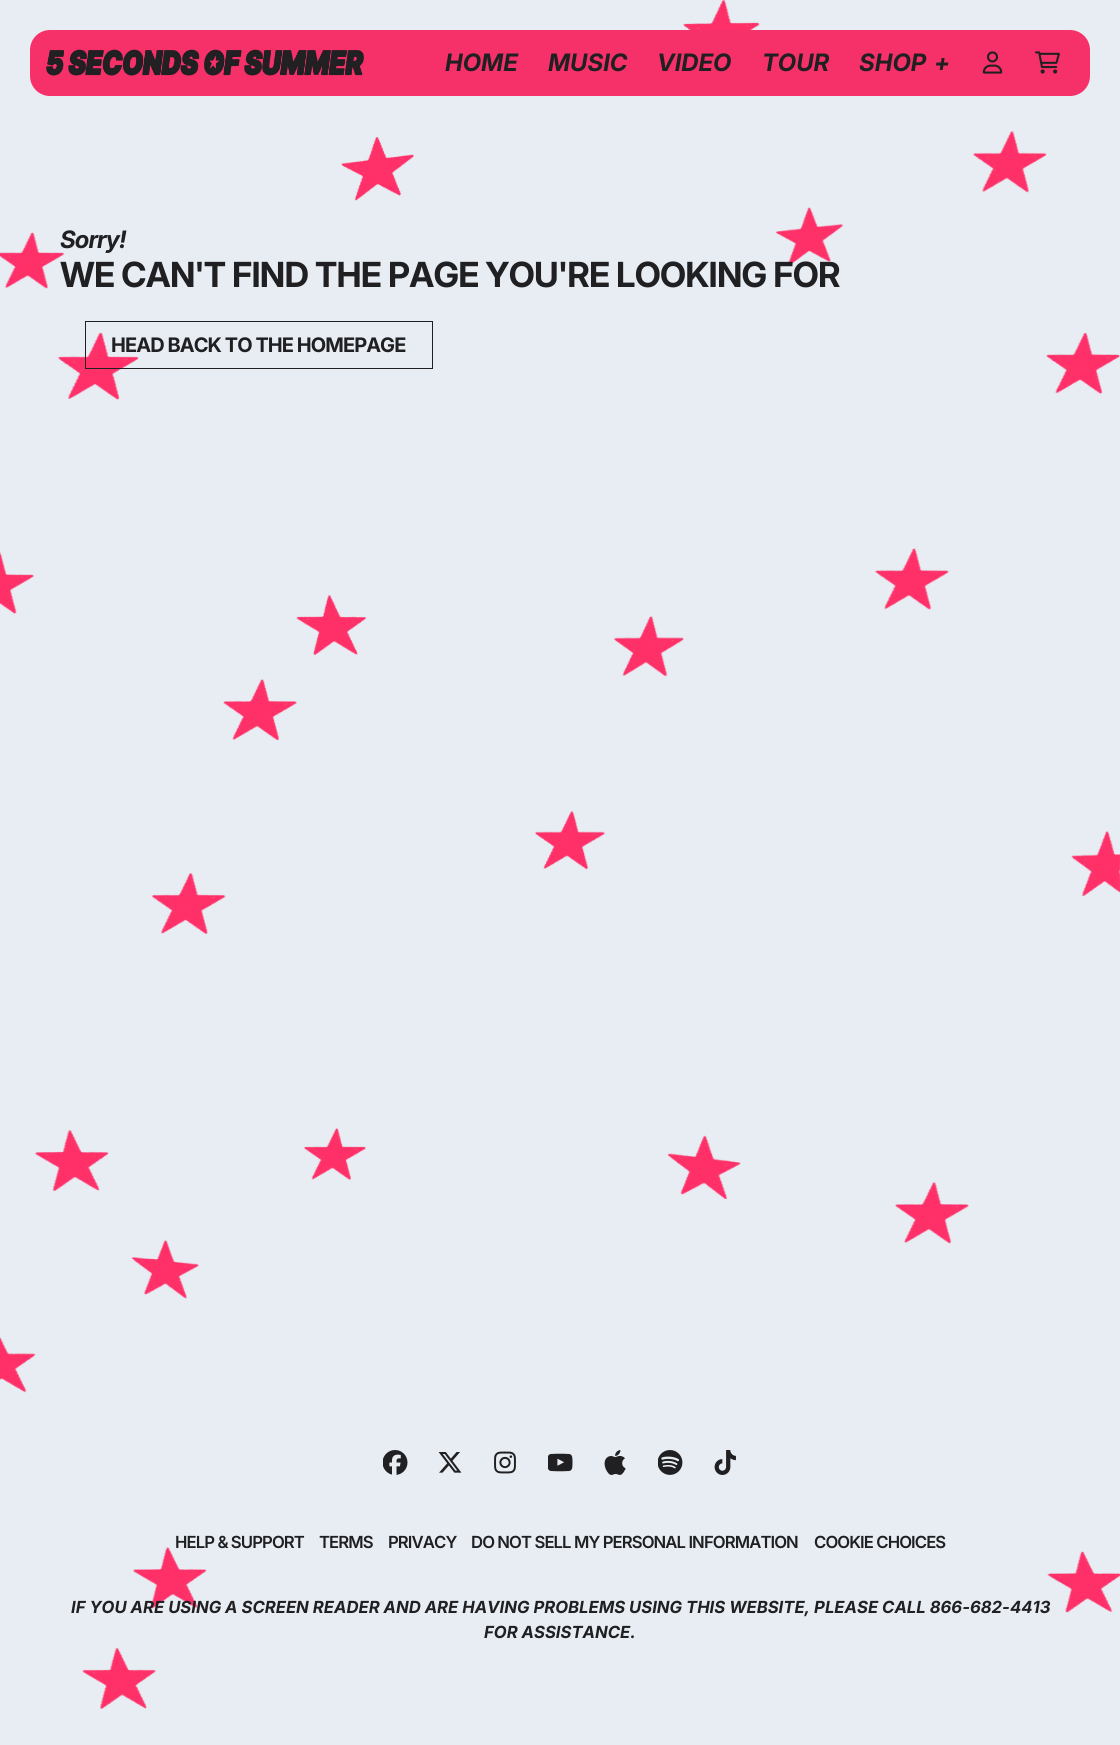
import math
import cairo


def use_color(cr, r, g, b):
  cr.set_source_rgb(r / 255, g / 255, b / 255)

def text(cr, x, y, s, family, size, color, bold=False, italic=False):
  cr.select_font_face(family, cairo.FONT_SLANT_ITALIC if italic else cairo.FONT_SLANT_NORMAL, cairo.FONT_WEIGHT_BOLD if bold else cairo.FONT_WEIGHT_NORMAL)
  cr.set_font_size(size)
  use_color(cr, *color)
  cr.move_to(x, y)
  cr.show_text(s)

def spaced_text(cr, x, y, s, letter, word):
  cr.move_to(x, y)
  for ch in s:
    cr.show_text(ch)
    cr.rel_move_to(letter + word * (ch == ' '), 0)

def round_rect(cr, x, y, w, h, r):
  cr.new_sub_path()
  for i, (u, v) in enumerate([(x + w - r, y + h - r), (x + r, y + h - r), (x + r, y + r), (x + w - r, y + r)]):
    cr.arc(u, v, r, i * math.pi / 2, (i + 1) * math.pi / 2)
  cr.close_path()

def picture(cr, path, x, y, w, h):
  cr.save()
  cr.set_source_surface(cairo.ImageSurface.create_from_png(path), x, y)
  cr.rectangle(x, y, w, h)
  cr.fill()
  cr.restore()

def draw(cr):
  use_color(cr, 231, 237, 243)
  cr.paint()
  picture(cr, "img_01.png", 0, 0, 1120, 1709)
  use_color(cr, 246, 49, 105)
  round_rect(cr, 30, 30, 1060, 66, 20)
  cr.fill()
  picture(cr, "img_02.png", 46, 49, 318, 27)
  picture(cr, "img_03.png", 982, 51, 21, 23)
  picture(cr, "img_04.png", 1035, 51, 25, 23)
  cr.rectangle(85.5, 321.5, 347, 47)
  use_color(cr, 32, 32, 34)
  cr.set_line_width(1)
  cr.stroke()
  picture(cr, "img_05.png", 383, 1450, 25, 25)
  picture(cr, "img_06.png", 438, 1452, 24, 21)
  picture(cr, "img_07.png", 494, 1451, 22, 23)
  picture(cr, "img_08.png", 548, 1453, 25, 19)
  picture(cr, "img_09.png", 604, 1450, 22, 25)
  picture(cr, "img_10.png", 658, 1450, 25, 25)
  picture(cr, "img_11.png", 714, 1450, 22, 25)
  text(cr, 445, 71, "HOME", "Inter", 24, (32, 32, 34), bold=True, italic=True)
  text(cr, 548, 71, "MUSIC", "Inter", 24, (32, 32, 34), bold=True, italic=True)
  text(cr, 657, 71, "VIDEO", "Inter", 24, (32, 32, 34), bold=True, italic=True)
  text(cr, 762, 71, "TOUR", "Inter", 24, (32, 32, 34), bold=True, italic=True)
  text(cr, 859, 71, "SHOP", "Inter", 24, (32, 32, 34), bold=True, italic=True)
  text(cr, 934, 71, "+", "Inter", 24, (32, 32, 34), bold=True, italic=True)
  spaced_text(cr, 60, 248, "Sorry!", -0.9, 0)
  cr.select_font_face("Inter", cairo.FONT_SLANT_NORMAL, cairo.FONT_WEIGHT_BOLD)
  cr.set_font_size(34.6)
  spaced_text(cr, 60, 287, "WE CAN'T FIND THE PAGE YOU'RE LOOKING FOR", -0.75, 0)
  cr.select_font_face("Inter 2", cairo.FONT_SLANT_NORMAL, cairo.FONT_WEIGHT_BOLD)
  cr.set_font_size(20)
  spaced_text(cr, 111, 352, "HEAD BACK TO THE HOMEPAGE", -0.9, 0)
  cr.select_font_face("Inter SemiBold")
  cr.set_font_size(16.67)
  spaced_text(cr, 175, 1548, "HELP & SUPPORT", -0.9, 0)
  spaced_text(cr, 319, 1548, "TERMS", -0.9, 0)
  spaced_text(cr, 388, 1548, "PRIVACY", -0.9, 0)
  spaced_text(cr, 471, 1548, "DO NOT SELL MY PERSONAL INFORMATION", -0.9, 0)
  spaced_text(cr, 814, 1548, "COOKIE CHOICES", -0.9, 0)
  text(cr, 71, 1613, "IF YOU ARE USING A SCREEN READER AND ARE HAVING PROBLEMS USING THIS WEBSITE, PLEASE CALL 866-682-4413", "Inter 2", 16.67, (32, 32, 34), bold=True, italic=True)
  text(cr, 484, 1638, "FOR ASSISTANCE.", "Inter 2", 16.67, (32, 32, 34), bold=True, italic=True)


surface = cairo.ImageSurface(cairo.FORMAT_RGB24, 1120, 1745)
cr = cairo.Context(surface)
options = cairo.FontOptions()
options.set_hint_metrics(cairo.HINT_METRICS_OFF)
options.set_hint_style(cairo.HINT_STYLE_NONE)
cr.set_font_options(options)
cr.set_miter_limit(4)
draw(cr)
surface.write_to_png("out.png")
